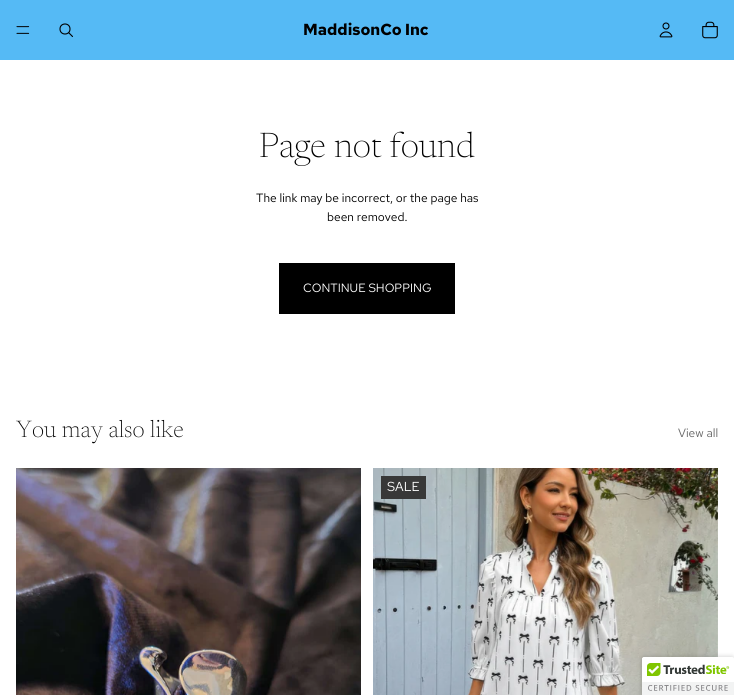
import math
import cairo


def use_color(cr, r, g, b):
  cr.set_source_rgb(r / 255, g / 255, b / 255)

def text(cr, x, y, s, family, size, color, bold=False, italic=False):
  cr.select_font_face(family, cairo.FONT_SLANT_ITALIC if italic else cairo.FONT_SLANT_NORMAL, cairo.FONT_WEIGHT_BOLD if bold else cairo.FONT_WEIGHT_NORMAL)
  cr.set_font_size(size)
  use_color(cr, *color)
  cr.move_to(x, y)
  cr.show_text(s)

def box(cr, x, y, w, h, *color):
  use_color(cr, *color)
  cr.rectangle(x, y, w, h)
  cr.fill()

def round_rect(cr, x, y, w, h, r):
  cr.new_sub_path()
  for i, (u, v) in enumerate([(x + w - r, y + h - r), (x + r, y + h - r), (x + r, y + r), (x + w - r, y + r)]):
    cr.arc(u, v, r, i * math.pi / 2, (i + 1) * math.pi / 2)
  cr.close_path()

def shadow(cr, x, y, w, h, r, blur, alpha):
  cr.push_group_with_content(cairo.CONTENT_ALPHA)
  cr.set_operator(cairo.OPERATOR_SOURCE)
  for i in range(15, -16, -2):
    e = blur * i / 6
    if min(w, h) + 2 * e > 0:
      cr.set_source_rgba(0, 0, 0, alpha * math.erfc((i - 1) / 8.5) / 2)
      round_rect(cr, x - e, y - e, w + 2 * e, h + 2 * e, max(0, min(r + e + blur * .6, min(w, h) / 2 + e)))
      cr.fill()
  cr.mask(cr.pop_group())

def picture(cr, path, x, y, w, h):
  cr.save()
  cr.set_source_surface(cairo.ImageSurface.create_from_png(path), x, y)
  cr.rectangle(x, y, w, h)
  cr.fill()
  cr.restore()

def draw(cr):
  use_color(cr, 255, 255, 255)
  cr.paint()
  box(cr, 0, 0, 734, 60, 85, 186, 245)
  picture(cr, "img_01.png", 16, 26, 14, 8)
  cr.arc(65, 29, 5, 0, 2 * math.pi)
  use_color(cr, 0, 0, 0)
  cr.set_line_width(1.1)
  cr.stroke()
  cr.new_path()
  cr.move_to(69, 33)
  cr.line_to(72.5, 36.5)
  cr.set_line_cap(cairo.LINE_CAP_ROUND)
  cr.set_line_join(cairo.LINE_JOIN_ROUND)
  cr.stroke()
  picture(cr, "img_02.png", 659, 22, 14, 16)
  picture(cr, "img_03.png", 702, 21, 16, 18)
  box(cr, 279, 263, 176, 51, 0, 0, 0)
  picture(cr, "img_04.png", 16, 468, 345, 227)
  picture(cr, "img_05.png", 373, 468, 345, 227)
  box(cr, 381, 476, 45, 23, 56, 56, 56)
  use_color(cr, 0, 0, 0)
  shadow(cr, 642, 657, 92, 38, 2, 2.5, 0.2)
  use_color(cr, 255, 255, 255)
  cr.new_path()
  cr.move_to(644, 657)
  cr.line_to(734, 657)
  cr.line_to(734, 695)
  cr.line_to(642, 695)
  cr.line_to(642, 659)
  cr.curve_to(642, 658, 643, 657, 644, 657)
  cr.close_path()
  cr.fill()
  picture(cr, "img_06.png", 642, 657, 92, 38)
  text(cr, 303, 35, "MaddisonCo Inc", "Red Hat Text", 16, (0, 0, 0), bold=True)
  text(cr, 259, 157, "Page not found", "Newsreader ExtraLight", 35.25, (0, 0, 0))
  text(cr, 256, 202, "The link may be incorrect, or the page has", "Red Hat Text", 12, (0, 0, 0))
  text(cr, 327, 221, "been removed.", "Red Hat Text", 12, (0, 0, 0))
  text(cr, 303, 292, "CONTINUE SHOPPING", "Red Hat Text", 12, (255, 255, 255))
  text(cr, 16, 437, "You may also like", "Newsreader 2 ExtraLight", 24, (0, 0, 0))
  text(cr, 678, 437, "View all", "Red Hat Text", 12, (102, 102, 102))
  text(cr, 387, 491, "SALE", "Red Hat Text", 13, (255, 255, 255))


surface = cairo.ImageSurface(cairo.FORMAT_RGB24, 734, 695)
cr = cairo.Context(surface)
options = cairo.FontOptions()
options.set_hint_metrics(cairo.HINT_METRICS_OFF)
options.set_hint_style(cairo.HINT_STYLE_NONE)
cr.set_font_options(options)
cr.set_miter_limit(4)
draw(cr)
surface.write_to_png("out.png")
